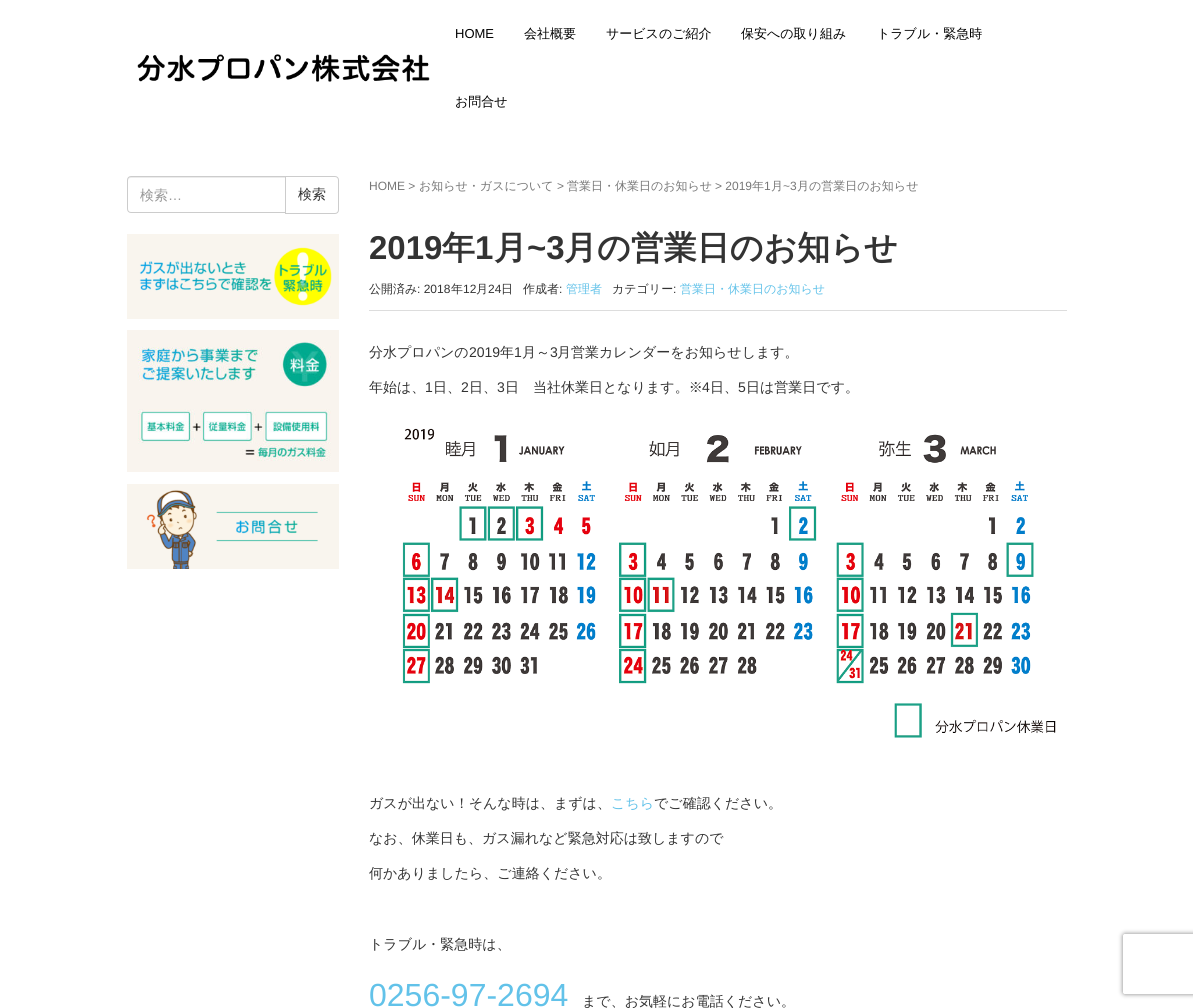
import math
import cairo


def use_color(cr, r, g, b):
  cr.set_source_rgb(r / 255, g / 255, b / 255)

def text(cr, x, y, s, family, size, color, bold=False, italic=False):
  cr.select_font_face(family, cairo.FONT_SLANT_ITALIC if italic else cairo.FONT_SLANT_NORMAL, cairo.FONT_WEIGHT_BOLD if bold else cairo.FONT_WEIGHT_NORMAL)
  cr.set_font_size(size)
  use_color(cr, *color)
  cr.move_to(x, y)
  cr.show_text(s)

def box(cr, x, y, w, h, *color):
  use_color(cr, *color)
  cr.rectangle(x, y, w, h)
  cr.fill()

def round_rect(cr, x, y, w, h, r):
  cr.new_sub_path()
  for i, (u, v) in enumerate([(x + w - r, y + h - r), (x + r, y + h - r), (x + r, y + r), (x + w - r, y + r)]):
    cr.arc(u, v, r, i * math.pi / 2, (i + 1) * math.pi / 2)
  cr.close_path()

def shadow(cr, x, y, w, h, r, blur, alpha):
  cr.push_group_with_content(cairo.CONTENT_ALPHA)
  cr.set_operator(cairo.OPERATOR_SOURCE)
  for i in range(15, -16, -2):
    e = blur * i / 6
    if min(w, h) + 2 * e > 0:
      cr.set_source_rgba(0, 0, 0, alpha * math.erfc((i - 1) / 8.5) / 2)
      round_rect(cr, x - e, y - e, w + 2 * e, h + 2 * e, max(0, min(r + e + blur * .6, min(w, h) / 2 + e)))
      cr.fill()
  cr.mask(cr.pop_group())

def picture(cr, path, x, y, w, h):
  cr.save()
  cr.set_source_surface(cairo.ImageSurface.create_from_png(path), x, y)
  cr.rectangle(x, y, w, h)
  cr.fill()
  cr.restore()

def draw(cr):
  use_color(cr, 255, 255, 255)
  cr.paint()
  picture(cr, "img_01.png", 137, 54, 293, 28)
  cr.new_path()
  cr.move_to(285.5, 176.5)
  cr.line_to(335, 176.5)
  cr.curve_to(337, 176.5, 338.5, 178, 338.5, 180)
  cr.line_to(338.5, 210)
  cr.curve_to(338.5, 212, 337, 213.5, 335, 213.5)
  cr.line_to(285.5, 213.5)
  cr.close_path()
  use_color(cr, 204, 204, 204)
  cr.set_line_width(1)
  cr.stroke()
  use_color(cr, 255, 255, 255)
  cr.new_path()
  cr.move_to(131, 176)
  cr.line_to(286, 176)
  cr.line_to(286, 213)
  cr.line_to(131, 213)
  cr.curve_to(129, 213, 127, 211, 127, 209)
  cr.line_to(127, 180)
  cr.curve_to(127, 178, 129, 176, 131, 176)
  cr.close_path()
  cr.fill()
  use_color(cr, 236, 236, 236)
  cr.new_path()
  cr.move_to(131, 178)
  cr.line_to(285, 178)
  cr.line_to(285, 177)
  cr.line_to(130, 177)
  cr.curve_to(128, 177, 128, 179, 128, 181)
  cr.curve_to(128, 179, 129, 178, 131, 178)
  cr.close_path()
  cr.fill()
  cr.new_path()
  cr.move_to(131, 176.5)
  cr.line_to(285.5, 176.5)
  cr.line_to(285.5, 212.5)
  cr.line_to(131, 212.5)
  cr.curve_to(129, 212.5, 127.5, 211, 127.5, 209)
  cr.line_to(127.5, 180)
  cr.curve_to(127.5, 178, 129, 176.5, 131, 176.5)
  cr.close_path()
  use_color(cr, 204, 204, 204)
  cr.stroke()
  picture(cr, "img_02.png", 127, 234, 212, 85)
  picture(cr, "img_03.png", 127, 330, 212, 142)
  picture(cr, "img_04.png", 127, 484, 212, 85)
  box(cr, 369, 310, 698, 1, 221, 221, 221)
  picture(cr, "img_05.png", 402, 428, 654, 310)
  cr.save()
  cr.set_fill_rule(cairo.FILL_RULE_EVEN_ODD)
  cr.new_path()
  cr.move_to(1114, 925)
  cr.line_to(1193, 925)
  cr.line_to(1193, 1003)
  cr.line_to(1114, 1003)
  cr.close_path()
  cr.move_to(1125, 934)
  cr.line_to(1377, 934)
  cr.curve_to(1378, 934, 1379, 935, 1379, 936)
  cr.line_to(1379, 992)
  cr.curve_to(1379, 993, 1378, 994, 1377, 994)
  cr.line_to(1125, 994)
  cr.curve_to(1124, 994, 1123, 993, 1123, 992)
  cr.line_to(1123, 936)
  cr.curve_to(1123, 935, 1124, 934, 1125, 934)
  cr.close_path()
  cr.clip()
  use_color(cr, 128, 128, 128)
  shadow(cr, 1123, 934, 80, 60, 2, 2.5, 1)
  cr.restore()
  text(cr, 455, 38, "HOME", "Liberation Sans", 13, (0, 0, 0))
  text(cr, 524, 38, "会社概要", "WenQuanYi Zen Hei Medium", 13, (0, 0, 0))
  text(cr, 606, 38, "サービスのご紹介", "WenQuanYi Zen Hei Medium", 13, (0, 0, 0))
  text(cr, 741, 38, "保安への取り組み", "WenQuanYi Zen Hei Medium", 13, (0, 0, 0))
  text(cr, 877, 38, "トラブル・緊急時", "WenQuanYi Zen Hei Medium", 13, (0, 0, 0))
  text(cr, 455, 106, "お問合せ", "WenQuanYi Zen Hei Medium", 13, (0, 0, 0))
  text(cr, 140, 200, "検索", "WenQuanYi Zen Hei Medium", 14, (153, 153, 153))
  text(cr, 168, 200, "…", "Liberation Sans", 14, (153, 153, 153))
  text(cr, 298, 199, "検索", "WenQuanYi Zen Hei Medium", 14, (51, 51, 51))
  text(cr, 369, 190, "HOME >", "Liberation Sans", 12, (119, 119, 119))
  text(cr, 419, 190, "お知らせ・ガスについて", "WenQuanYi Zen Hei Medium", 12, (119, 119, 119))
  text(cr, 557, 190, ">", "Liberation Sans", 12, (119, 119, 119))
  text(cr, 567, 190, "営業日・休業日のお知らせ", "WenQuanYi Zen Hei Medium", 12, (119, 119, 119))
  text(cr, 715, 190, "> 2019", "Liberation Sans", 12, (119, 119, 119))
  text(cr, 752, 190, "年", "WenQuanYi Zen Hei Medium", 12, (119, 119, 119))
  text(cr, 764, 190, "1", "Liberation Sans", 12, (119, 119, 119))
  text(cr, 771, 190, "月", "WenQuanYi Zen Hei Medium", 12, (119, 119, 119))
  text(cr, 783, 190, "~3", "Liberation Sans", 12, (119, 119, 119))
  text(cr, 797, 190, "月の営業日のお知らせ", "WenQuanYi Zen Hei Medium", 12, (119, 119, 119))
  text(cr, 369, 259, "2019", "Liberation Sans", 33, (51, 51, 51), bold=True)
  text(cr, 442, 259, "年", "WenQuanYi Zen Hei", 33, (51, 51, 51), bold=True)
  text(cr, 475, 259, "1", "Liberation Sans", 33, (51, 51, 51), bold=True)
  text(cr, 494, 259, "月", "WenQuanYi Zen Hei", 33, (51, 51, 51), bold=True)
  text(cr, 527, 259, "~3", "Liberation Sans", 33, (51, 51, 51), bold=True)
  text(cr, 564, 259, "月の営業日のお知らせ", "WenQuanYi Zen Hei", 33, (51, 51, 51), bold=True)
  text(cr, 369, 293, "公開済み", "WenQuanYi Zen Hei Medium", 12, (51, 51, 51))
  text(cr, 417, 293, ": 2018", "Liberation Sans", 12, (51, 51, 51))
  text(cr, 451, 293, "年", "WenQuanYi Zen Hei Medium", 12, (51, 51, 51))
  text(cr, 463, 293, "12", "Liberation Sans", 12, (51, 51, 51))
  text(cr, 476, 293, "月", "WenQuanYi Zen Hei Medium", 12, (51, 51, 51))
  text(cr, 488, 293, "24", "Liberation Sans", 12, (51, 51, 51))
  text(cr, 501, 293, "日", "WenQuanYi Zen Hei Medium", 12, (51, 51, 51))
  text(cr, 523, 293, "作成者", "WenQuanYi Zen Hei Medium", 12, (51, 51, 51))
  text(cr, 559, 293, ":", "Liberation Sans", 12, (51, 51, 51))
  text(cr, 566, 293, "管理者", "WenQuanYi Zen Hei Medium", 12, (98, 194, 233))
  text(cr, 612, 293, "カテゴリー", "WenQuanYi Zen Hei Medium", 12, (51, 51, 51))
  text(cr, 673, 293, ":", "Liberation Sans", 12, (51, 51, 51))
  text(cr, 680, 293, "営業日・休業日のお知らせ", "WenQuanYi Zen Hei Medium", 12, (98, 194, 233))
  text(cr, 369, 357, "分水プロパンの", "WenQuanYi Zen Hei Medium", 14, (51, 51, 51))
  text(cr, 469, 357, "2019", "Liberation Sans", 14, (51, 51, 51))
  text(cr, 500, 357, "年", "WenQuanYi Zen Hei Medium", 14, (51, 51, 51))
  text(cr, 514, 357, "1", "Liberation Sans", 14, (51, 51, 51))
  text(cr, 522, 357, "月～", "WenQuanYi Zen Hei Medium", 14, (51, 51, 51))
  text(cr, 550, 357, "3", "Liberation Sans", 14, (51, 51, 51))
  text(cr, 557, 357, "月営業カレンダーをお知らせします。", "WenQuanYi Zen Hei Medium", 14, (51, 51, 51))
  text(cr, 369, 392, "年始は、", "WenQuanYi Zen Hei Medium", 14, (51, 51, 51))
  text(cr, 425, 392, "1", "Liberation Sans", 14, (51, 51, 51))
  text(cr, 433, 392, "日、", "WenQuanYi Zen Hei Medium", 14, (51, 51, 51))
  text(cr, 461, 392, "2", "Liberation Sans", 14, (51, 51, 51))
  text(cr, 469, 392, "日、", "WenQuanYi Zen Hei Medium", 14, (51, 51, 51))
  text(cr, 497, 392, "3", "Liberation Sans", 14, (51, 51, 51))
  text(cr, 505, 392, "日　当社休業日となります。※", "WenQuanYi Zen Hei Medium", 14, (51, 51, 51))
  text(cr, 702, 392, "4", "Liberation Sans", 14, (51, 51, 51))
  text(cr, 710, 392, "日、", "WenQuanYi Zen Hei Medium", 14, (51, 51, 51))
  text(cr, 738, 392, "5", "Liberation Sans", 14, (51, 51, 51))
  text(cr, 746, 392, "日は営業日です。", "WenQuanYi Zen Hei Medium", 14, (51, 51, 51))
  text(cr, 369, 808, "ガスが出ない！そんな時は、まずは、", "WenQuanYi Zen Hei Medium", 14, (51, 51, 51))
  text(cr, 611, 808, "こちら", "WenQuanYi Zen Hei Medium", 14, (98, 194, 233))
  text(cr, 654, 808, "でご確認ください。", "WenQuanYi Zen Hei Medium", 14, (51, 51, 51))
  text(cr, 369, 843, "なお、休業日も、ガス漏れなど緊急対応は致しますので", "WenQuanYi Zen Hei Medium", 14, (51, 51, 51))
  text(cr, 369, 878, "何かありましたら、ご連絡ください。", "WenQuanYi Zen Hei Medium", 14, (51, 51, 51))
  text(cr, 369, 949, "トラブル・緊急時は、", "WenQuanYi Zen Hei Medium", 14, (51, 51, 51))
  text(cr, 369, 1006, "0256‐97‐2694", "Liberation Sans", 32, (98, 194, 233))
  text(cr, 582, 1006, "まで、お気軽にお電話ください。", "WenQuanYi Zen Hei Medium", 14, (51, 51, 51))


surface = cairo.ImageSurface(cairo.FORMAT_RGB24, 1193, 1008)
cr = cairo.Context(surface)
options = cairo.FontOptions()
options.set_hint_metrics(cairo.HINT_METRICS_OFF)
options.set_hint_style(cairo.HINT_STYLE_NONE)
cr.set_font_options(options)
cr.set_miter_limit(4)
draw(cr)
surface.write_to_png("out.png")
